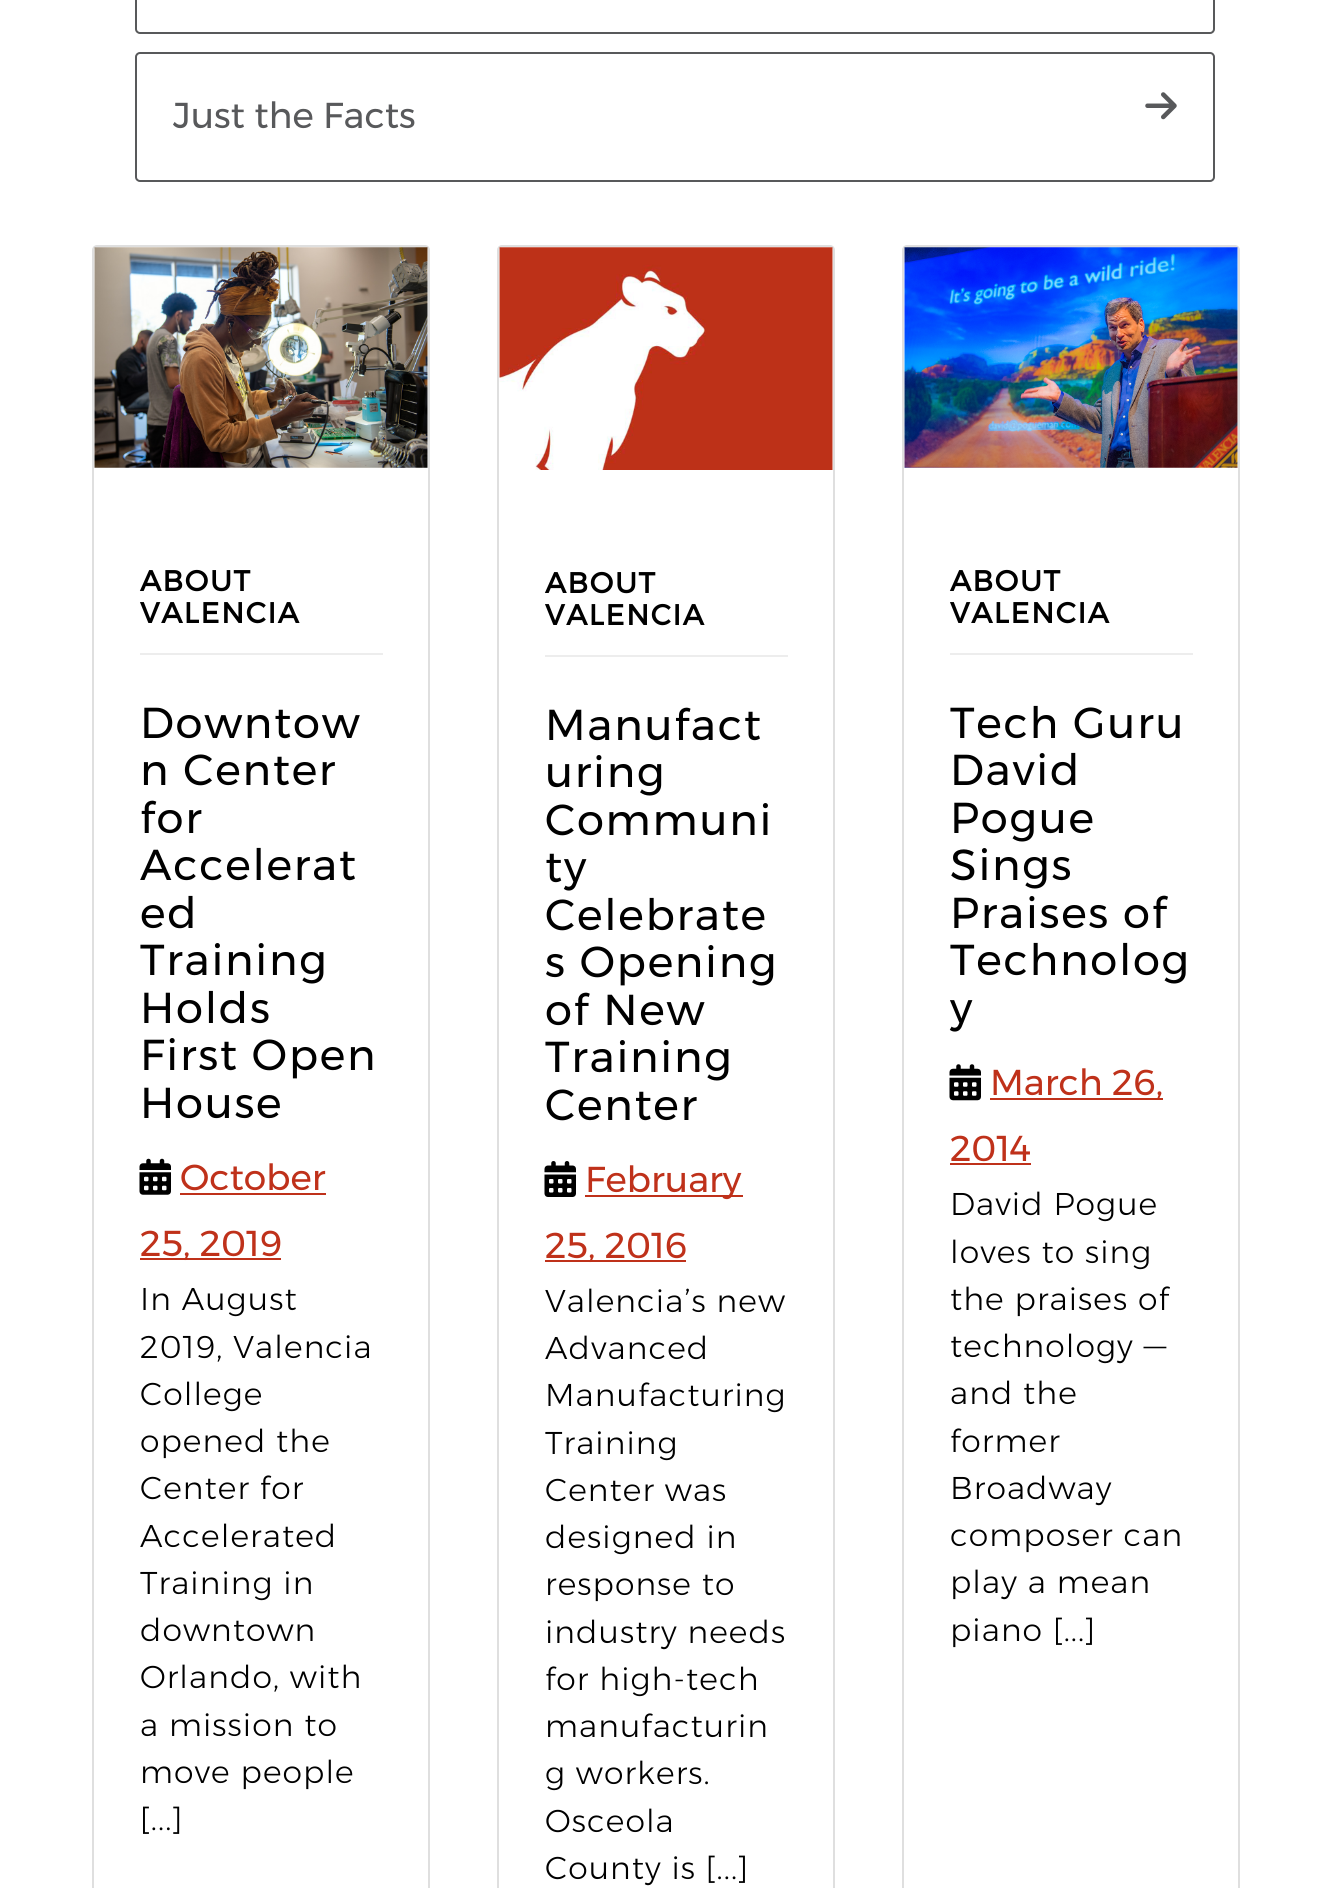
import math
import cairo


def use_color(cr, r, g, b):
  cr.set_source_rgb(r / 255, g / 255, b / 255)

def text(cr, x, y, s, family, size, color, bold=False, italic=False):
  cr.select_font_face(family, cairo.FONT_SLANT_ITALIC if italic else cairo.FONT_SLANT_NORMAL, cairo.FONT_WEIGHT_BOLD if bold else cairo.FONT_WEIGHT_NORMAL)
  cr.set_font_size(size)
  use_color(cr, *color)
  cr.move_to(x, y)
  cr.show_text(s)

def spaced_text(cr, x, y, s, letter, word):
  cr.move_to(x, y)
  for ch in s:
    cr.show_text(ch)
    cr.rel_move_to(letter + word * (ch == ' '), 0)

def box(cr, x, y, w, h, *color):
  use_color(cr, *color)
  cr.rectangle(x, y, w, h)
  cr.fill()

def round_rect(cr, x, y, w, h, r):
  cr.new_sub_path()
  for i, (u, v) in enumerate([(x + w - r, y + h - r), (x + r, y + h - r), (x + r, y + r), (x + w - r, y + r)]):
    cr.arc(u, v, r, i * math.pi / 2, (i + 1) * math.pi / 2)
  cr.close_path()

def picture(cr, path, x, y, w, h):
  cr.save()
  cr.set_source_surface(cairo.ImageSurface.create_from_png(path), x, y)
  cr.rectangle(x, y, w, h)
  cr.fill()
  cr.restore()

def draw(cr):
  use_color(cr, 255, 255, 255)
  cr.paint()
  round_rect(cr, 136, -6, 1078, 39, 4)
  use_color(cr, 88, 89, 91)
  cr.stroke()
  round_rect(cr, 136, 53, 1078, 128, 4)
  cr.stroke()
  picture(cr, "img_01.png", 1145, 92, 32, 28)
  round_rect(cr, 93, 246, 336, 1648, 4)
  use_color(cr, 223, 223, 223)
  cr.stroke()
  picture(cr, "img_02.png", 94, 247, 334, 221)
  box(cr, 140, 653, 243, 2, 237, 237, 237)
  picture(cr, "img_03.png", 139, 1158, 32, 37)
  box(cr, 180, 1193, 146, 2, 191, 49, 26)
  box(cr, 140, 1258, 141, 2, 191, 49, 26)
  round_rect(cr, 498, 246, 336, 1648, 4)
  use_color(cr, 223, 223, 223)
  cr.stroke()
  picture(cr, "img_04.png", 499, 247, 334, 223)
  box(cr, 545, 655, 243, 2, 237, 237, 237)
  picture(cr, "img_05.png", 544, 1161, 32, 36)
  box(cr, 585, 1195, 158, 2, 191, 49, 26)
  box(cr, 545, 1260, 141, 2, 191, 49, 26)
  round_rect(cr, 903, 246, 336, 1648, 4)
  use_color(cr, 223, 223, 223)
  cr.stroke()
  picture(cr, "img_06.png", 904, 247, 334, 221)
  box(cr, 950, 653, 243, 2, 237, 237, 237)
  picture(cr, "img_07.png", 949, 1064, 32, 37)
  box(cr, 990, 1098, 173, 2, 191, 49, 26)
  box(cr, 950, 1163, 81, 2, 191, 49, 26)
  text(cr, 173, 128, "Just the Facts", "Montserrat", 36, (88, 89, 91))
  cr.select_font_face("Montserrat", cairo.FONT_SLANT_NORMAL, cairo.FONT_WEIGHT_BOLD)
  cr.set_font_size(28.75)
  use_color(cr, 0, 0, 0)
  spaced_text(cr, 140, 591, "ABOUT", 1.75, 0)
  spaced_text(cr, 140, 623, "VALENCIA", 1.75, 0)
  cr.select_font_face("Montserrat")
  cr.set_font_size(43.25)
  spaced_text(cr, 140, 738, "Downtow", 1.75, 0)
  spaced_text(cr, 140, 785, "n Center", 1.75, 0)
  spaced_text(cr, 140, 833, "for", 1.75, 0)
  spaced_text(cr, 140, 880, "Accelerat", 1.75, 0)
  spaced_text(cr, 140, 928, "ed", 1.75, 0)
  spaced_text(cr, 140, 975, "Training", 1.75, 0)
  spaced_text(cr, 140, 1023, "Holds", 1.75, 0)
  spaced_text(cr, 140, 1070, "First Open", 1.75, 0)
  spaced_text(cr, 140, 1118, "House", 1.75, 0)
  text(cr, 180, 1190, "October", "Montserrat", 36, (191, 49, 26))
  text(cr, 140, 1256, "25, 2019", "Montserrat", 36, (191, 49, 26))
  cr.select_font_face("Montserrat Light")
  cr.set_font_size(31.5)
  use_color(cr, 0, 0, 0)
  spaced_text(cr, 140, 1310, "In August", 1.1, 0)
  spaced_text(cr, 140, 1358, "2019, Valencia", 1.1, 0)
  spaced_text(cr, 140, 1405, "College", 1.1, 0)
  spaced_text(cr, 140, 1452, "opened the", 1.1, 0)
  spaced_text(cr, 140, 1499, "Center for", 1.1, 0)
  spaced_text(cr, 140, 1547, "Accelerated", 1.1, 0)
  spaced_text(cr, 140, 1594, "Training in", 1.1, 0)
  spaced_text(cr, 140, 1641, "downtown", 1.1, 0)
  spaced_text(cr, 140, 1688, "Orlando, with", 1.1, 0)
  spaced_text(cr, 140, 1736, "a mission to", 1.1, 0)
  spaced_text(cr, 140, 1783, "move people", 1.1, 0)
  spaced_text(cr, 140, 1830, "[...]", 1.1, 0)
  cr.select_font_face("Montserrat", cairo.FONT_SLANT_NORMAL, cairo.FONT_WEIGHT_BOLD)
  cr.set_font_size(28.75)
  spaced_text(cr, 545, 593, "ABOUT", 1.75, 0)
  spaced_text(cr, 545, 625, "VALENCIA", 1.75, 0)
  cr.select_font_face("Montserrat")
  cr.set_font_size(43.25)
  spaced_text(cr, 545, 740, "Manufact", 1.75, 0)
  spaced_text(cr, 545, 787, "uring", 1.75, 0)
  spaced_text(cr, 545, 835, "Communi", 1.75, 0)
  spaced_text(cr, 545, 882, "ty", 1.75, 0)
  spaced_text(cr, 545, 930, "Celebrate", 1.75, 0)
  spaced_text(cr, 545, 977, "s Opening", 1.75, 0)
  spaced_text(cr, 545, 1025, "of New", 1.75, 0)
  spaced_text(cr, 545, 1072, "Training", 1.75, 0)
  spaced_text(cr, 545, 1120, "Center", 1.75, 0)
  text(cr, 585, 1192, "February", "Montserrat", 36, (191, 49, 26))
  text(cr, 545, 1258, "25, 2016", "Montserrat", 36, (191, 49, 26))
  cr.select_font_face("Montserrat Light")
  cr.set_font_size(31.5)
  use_color(cr, 0, 0, 0)
  spaced_text(cr, 545, 1312, "Valencia’s new", 1.1, 0)
  spaced_text(cr, 545, 1359, "Advanced", 1.1, 0)
  spaced_text(cr, 545, 1406, "Manufacturing", 1.1, 0)
  spaced_text(cr, 545, 1454, "Training", 1.1, 0)
  spaced_text(cr, 545, 1501, "Center was", 1.1, 0)
  spaced_text(cr, 545, 1548, "designed in", 1.1, 0)
  spaced_text(cr, 545, 1595, "response to", 1.1, 0)
  spaced_text(cr, 545, 1643, "industry needs", 1.1, 0)
  spaced_text(cr, 545, 1690, "for high-tech", 1.1, 0)
  spaced_text(cr, 545, 1737, "manufacturin", 1.1, 0)
  spaced_text(cr, 545, 1784, "g workers.", 1.1, 0)
  spaced_text(cr, 545, 1832, "Osceola", 1.1, 0)
  spaced_text(cr, 545, 1879, "County is [...]", 1.1, 0)
  cr.select_font_face("Montserrat", cairo.FONT_SLANT_NORMAL, cairo.FONT_WEIGHT_BOLD)
  cr.set_font_size(28.75)
  spaced_text(cr, 950, 591, "ABOUT", 1.75, 0)
  spaced_text(cr, 950, 623, "VALENCIA", 1.75, 0)
  cr.select_font_face("Montserrat")
  cr.set_font_size(43.25)
  spaced_text(cr, 950, 738, "Tech Guru", 1.75, 0)
  spaced_text(cr, 950, 785, "David", 1.75, 0)
  spaced_text(cr, 950, 833, "Pogue", 1.75, 0)
  spaced_text(cr, 950, 880, "Sings", 1.75, 0)
  spaced_text(cr, 950, 928, "Praises of", 1.75, 0)
  spaced_text(cr, 950, 975, "Technolog", 1.75, 0)
  spaced_text(cr, 950, 1023, "y", 1.75, 0)
  text(cr, 990, 1095, "March 26,", "Montserrat", 36, (191, 49, 26))
  text(cr, 950, 1161, "2014", "Montserrat", 36, (191, 49, 26))
  cr.select_font_face("Montserrat Light")
  cr.set_font_size(31.5)
  use_color(cr, 0, 0, 0)
  spaced_text(cr, 950, 1215, "David Pogue", 1.1, 0)
  spaced_text(cr, 950, 1263, "loves to sing", 1.1, 0)
  spaced_text(cr, 950, 1310, "the praises of", 1.1, 0)
  spaced_text(cr, 950, 1357, "technology —", 1.1, 0)
  spaced_text(cr, 950, 1404, "and the", 1.1, 0)
  spaced_text(cr, 950, 1452, "former", 1.1, 0)
  spaced_text(cr, 950, 1499, "Broadway", 1.1, 0)
  spaced_text(cr, 950, 1546, "composer can", 1.1, 0)
  spaced_text(cr, 950, 1593, "play a mean", 1.1, 0)
  spaced_text(cr, 950, 1641, "piano [...]", 1.1, 0)


surface = cairo.ImageSurface(cairo.FORMAT_RGB24, 1331, 1888)
cr = cairo.Context(surface)
options = cairo.FontOptions()
options.set_hint_metrics(cairo.HINT_METRICS_OFF)
options.set_hint_style(cairo.HINT_STYLE_NONE)
cr.set_font_options(options)
cr.set_miter_limit(4)
draw(cr)
surface.write_to_png("out.png")
